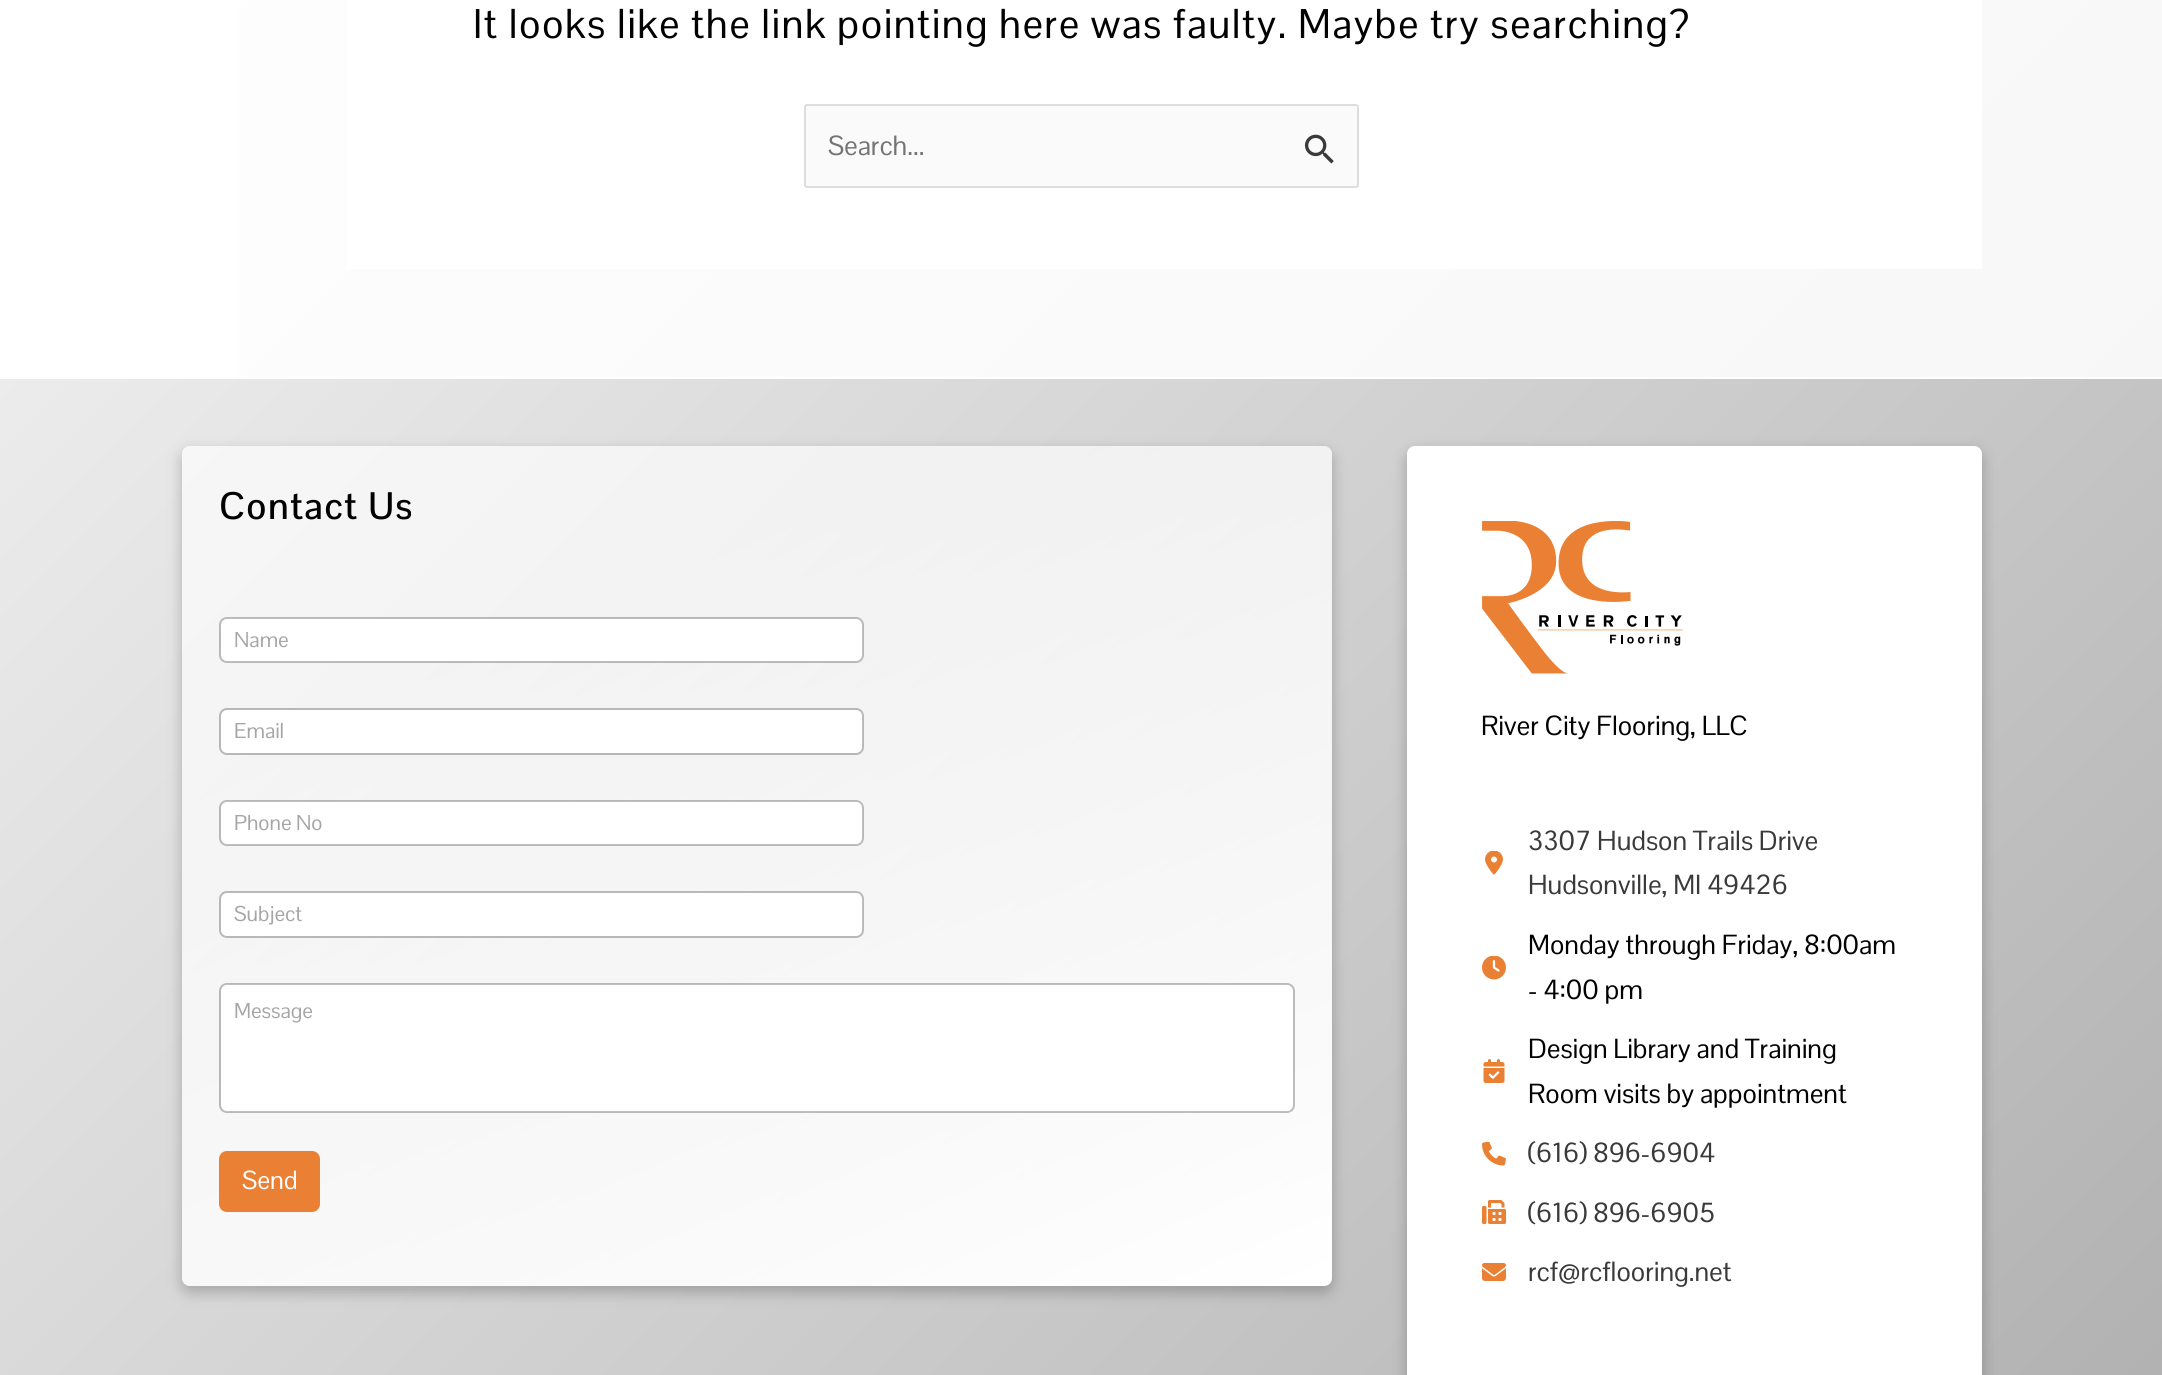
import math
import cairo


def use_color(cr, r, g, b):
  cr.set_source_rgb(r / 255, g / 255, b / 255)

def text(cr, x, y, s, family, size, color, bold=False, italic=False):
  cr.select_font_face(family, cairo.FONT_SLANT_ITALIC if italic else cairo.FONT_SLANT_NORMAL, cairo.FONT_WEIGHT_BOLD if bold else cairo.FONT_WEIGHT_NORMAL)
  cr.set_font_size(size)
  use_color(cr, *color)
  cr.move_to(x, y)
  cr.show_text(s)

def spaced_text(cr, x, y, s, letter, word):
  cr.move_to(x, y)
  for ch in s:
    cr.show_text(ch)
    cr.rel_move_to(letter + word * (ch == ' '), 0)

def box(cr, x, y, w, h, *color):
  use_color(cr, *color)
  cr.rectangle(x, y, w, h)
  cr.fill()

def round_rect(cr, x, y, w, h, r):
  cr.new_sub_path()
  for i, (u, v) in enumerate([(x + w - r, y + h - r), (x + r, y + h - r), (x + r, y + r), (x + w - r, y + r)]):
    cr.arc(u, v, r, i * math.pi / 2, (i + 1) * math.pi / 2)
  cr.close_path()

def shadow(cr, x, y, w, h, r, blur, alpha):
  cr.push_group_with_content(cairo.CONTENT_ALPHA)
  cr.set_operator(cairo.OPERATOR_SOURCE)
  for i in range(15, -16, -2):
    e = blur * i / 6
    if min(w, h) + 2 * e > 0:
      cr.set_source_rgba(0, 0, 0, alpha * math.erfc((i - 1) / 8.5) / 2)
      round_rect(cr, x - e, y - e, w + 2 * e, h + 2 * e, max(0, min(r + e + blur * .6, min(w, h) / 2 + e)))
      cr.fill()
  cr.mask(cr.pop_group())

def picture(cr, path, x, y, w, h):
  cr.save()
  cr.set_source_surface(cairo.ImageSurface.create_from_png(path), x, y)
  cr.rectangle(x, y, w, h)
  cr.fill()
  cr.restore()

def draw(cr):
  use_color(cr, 255, 255, 255)
  cr.paint()
  gradient = cairo.LinearGradient(72, -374, 2091, 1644)
  gradient.add_color_stop_rgba(0, 1, 1, 1, 1)
  gradient.add_color_stop_rgba(1, 0.957, 0.957, 0.957, 1)
  cr.set_source(gradient)
  cr.rectangle(239, 0, 1923, 377)
  cr.fill()
  box(cr, 347, 0, 1635, 269, 255, 255, 255)
  use_color(cr, 250, 250, 250)
  round_rect(cr, 805, 105, 553, 82, 2)
  cr.fill_preserve()
  use_color(cr, 221, 221, 221)
  cr.stroke()
  picture(cr, "img_01.png", 1304, 134, 30, 30)
  gradient = cairo.LinearGradient(272, 106, 1891, 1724)
  gradient.add_color_stop_rgba(0, 0.925, 0.925, 0.925, 1)
  gradient.add_color_stop_rgba(0.99, 0.694, 0.694, 0.694, 1)
  cr.set_source(gradient)
  cr.rectangle(0, 379, 2162, 996)
  cr.fill()
  cr.save()
  cr.set_fill_rule(cairo.FILL_RULE_EVEN_ODD)
  cr.new_path()
  cr.move_to(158, 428)
  cr.line_to(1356, 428)
  cr.line_to(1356, 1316)
  cr.line_to(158, 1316)
  cr.close_path()
  cr.move_to(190, 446)
  cr.line_to(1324, 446)
  cr.curve_to(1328.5, 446, 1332, 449.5, 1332, 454)
  cr.line_to(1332, 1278)
  cr.curve_to(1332, 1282.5, 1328.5, 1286, 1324, 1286)
  cr.line_to(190, 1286)
  cr.curve_to(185.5, 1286, 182, 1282.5, 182, 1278)
  cr.line_to(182, 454)
  cr.curve_to(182, 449.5, 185.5, 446, 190, 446)
  cr.close_path()
  cr.clip()
  use_color(cr, 0, 0, 0)
  shadow(cr, 182, 452, 1150, 840, 8, 7.5, 0.24)
  cr.restore()
  gradient = cairo.LinearGradient(518, 303, 996, 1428)
  gradient.add_color_stop_rgba(0.25, 1, 1, 1, 0.65)
  gradient.add_color_stop_rgba(1, 1, 1, 1, 1)
  cr.set_source(gradient)
  round_rect(cr, 182, 446, 1150, 840, 8)
  cr.fill()
  use_color(cr, 255, 255, 255)
  round_rect(cr, 221, 618, 642, 44, 6)
  cr.fill()
  round_rect(cr, 220, 618, 643, 44, 7)
  cr.set_source_rgba(0, 0, 0, 0.25)
  cr.stroke()
  use_color(cr, 255, 255, 255)
  round_rect(cr, 221, 710, 642, 43, 6)
  cr.fill()
  round_rect(cr, 220, 709, 643, 45, 7)
  cr.set_source_rgba(0, 0, 0, 0.25)
  cr.stroke()
  use_color(cr, 255, 255, 255)
  round_rect(cr, 221, 801, 642, 44, 6)
  cr.fill()
  round_rect(cr, 220, 801, 643, 44, 7)
  cr.set_source_rgba(0, 0, 0, 0.25)
  cr.stroke()
  use_color(cr, 255, 255, 255)
  round_rect(cr, 221, 893, 642, 43, 6)
  cr.fill()
  round_rect(cr, 220, 892, 643, 45, 7)
  cr.set_source_rgba(0, 0, 0, 0.25)
  cr.stroke()
  use_color(cr, 255, 255, 255)
  round_rect(cr, 221, 984, 1072, 128, 6)
  cr.fill()
  round_rect(cr, 220, 984, 1074, 128, 7)
  cr.set_source_rgba(0, 0, 0, 0.25)
  cr.stroke()
  use_color(cr, 234, 128, 51)
  round_rect(cr, 219, 1151, 101, 61, 8)
  cr.fill()
  use_color(cr, 0, 0, 0)
  shadow(cr, 1407, 452, 575, 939, 8, 7.5, 0.24)
  use_color(cr, 255, 255, 255)
  round_rect(cr, 1407, 446, 575, 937, 8)
  cr.fill()
  picture(cr, "img_02.png", 1482, 521, 201, 153)
  picture(cr, "img_03.png", 1485, 851, 18, 24)
  picture(cr, "img_04.png", 1482, 956, 24, 24)
  picture(cr, "img_05.png", 1483, 1059, 22, 24)
  picture(cr, "img_06.png", 1482, 1142, 24, 24)
  picture(cr, "img_07.png", 1482, 1200, 24, 24)
  picture(cr, "img_08.png", 1482, 1263, 24, 18)
  cr.select_font_face("Pontano Sans")
  cr.set_font_size(40.5)
  use_color(cr, 1, 1, 1)
  spaced_text(cr, 473, 38, "It looks like the link pointing here was faulty. Maybe try searching?", 1.5, 0)
  text(cr, 828, 155, "Search...", "Pontano Sans", 27, (117, 117, 117))
  cr.select_font_face("Pontano Sans SemiBold")
  cr.set_font_size(37.5)
  use_color(cr, 1, 1, 1)
  spaced_text(cr, 219, 519, "Contact Us", 1.5, 0)
  text(cr, 234, 647, "Name", "Pontano Sans", 21, (166, 166, 166))
  text(cr, 234, 738, "Email", "Pontano Sans", 21, (166, 166, 166))
  text(cr, 234, 830, "Phone No", "Pontano Sans", 21, (166, 166, 166))
  text(cr, 234, 921, "Subject", "Pontano Sans", 21, (166, 166, 166))
  text(cr, 234, 1018, "Message", "Pontano Sans", 21, (166, 166, 166))
  text(cr, 242, 1189, "Send", "Pontano Sans", 25.5, (255, 255, 255))
  text(cr, 1481, 735, "River City Flooring, LLC", "Pontano Sans", 27, (1, 1, 1))
  text(cr, 1528, 850, "3307 Hudson Trails Drive", "Pontano Sans", 27, (58, 58, 58))
  text(cr, 1528, 894, "Hudsonville, MI 49426", "Pontano Sans", 27, (58, 58, 58))
  text(cr, 1528, 954, "Monday through Friday, 8:00am", "Pontano Sans", 27, (1, 1, 1))
  text(cr, 1528, 999, "- 4:00 pm", "Pontano Sans", 27, (1, 1, 1))
  text(cr, 1528, 1058, "Design Library and Training", "Pontano Sans", 27, (1, 1, 1))
  text(cr, 1528, 1103, "Room visits by appointment", "Pontano Sans", 27, (1, 1, 1))
  text(cr, 1528, 1162, "(616) 896-6904", "Pontano Sans", 27, (58, 58, 58))
  text(cr, 1528, 1222, "(616) 896-6905", "Pontano Sans", 27, (58, 58, 58))
  text(cr, 1528, 1281, "rcf@rcflooring.net", "Pontano Sans", 27, (58, 58, 58))


surface = cairo.ImageSurface(cairo.FORMAT_RGB24, 2162, 1375)
cr = cairo.Context(surface)
options = cairo.FontOptions()
options.set_hint_metrics(cairo.HINT_METRICS_OFF)
options.set_hint_style(cairo.HINT_STYLE_NONE)
cr.set_font_options(options)
cr.set_miter_limit(4)
draw(cr)
surface.write_to_png("out.png")
